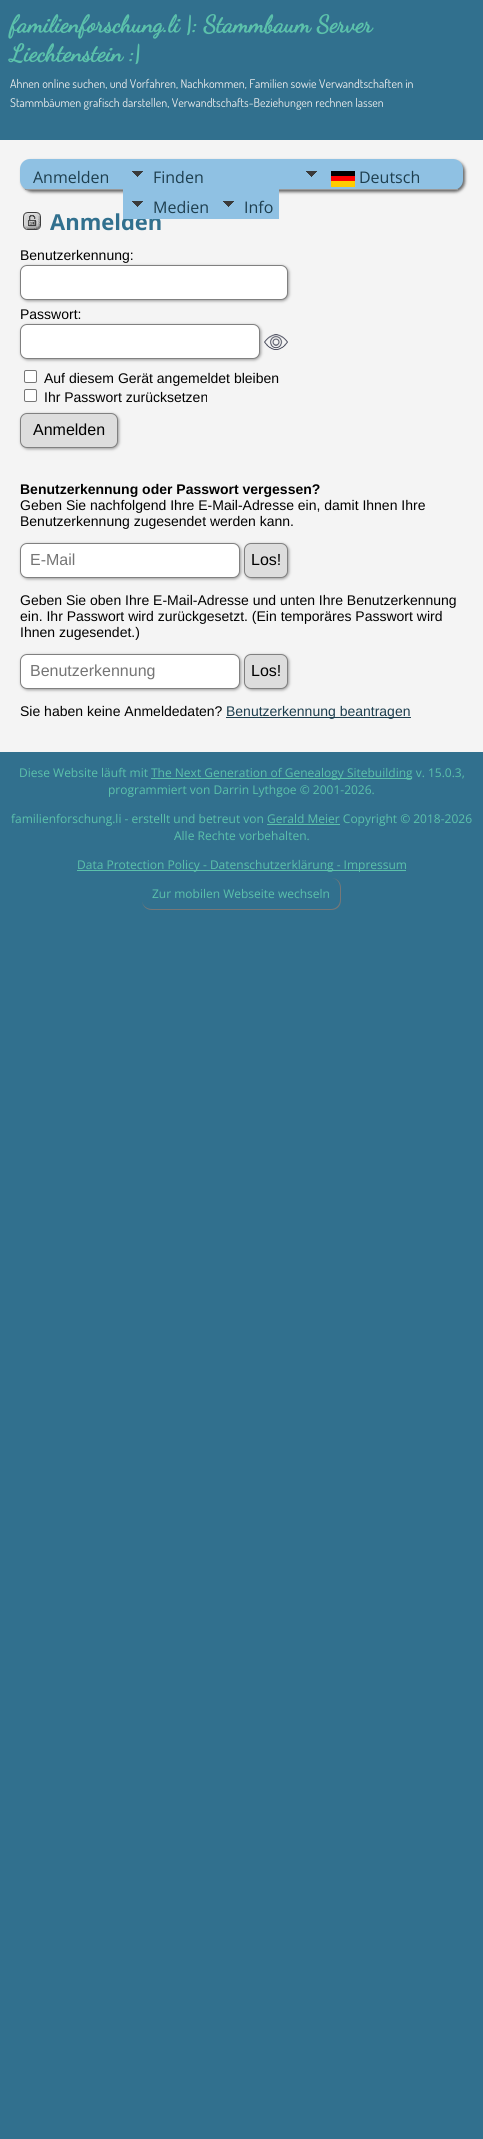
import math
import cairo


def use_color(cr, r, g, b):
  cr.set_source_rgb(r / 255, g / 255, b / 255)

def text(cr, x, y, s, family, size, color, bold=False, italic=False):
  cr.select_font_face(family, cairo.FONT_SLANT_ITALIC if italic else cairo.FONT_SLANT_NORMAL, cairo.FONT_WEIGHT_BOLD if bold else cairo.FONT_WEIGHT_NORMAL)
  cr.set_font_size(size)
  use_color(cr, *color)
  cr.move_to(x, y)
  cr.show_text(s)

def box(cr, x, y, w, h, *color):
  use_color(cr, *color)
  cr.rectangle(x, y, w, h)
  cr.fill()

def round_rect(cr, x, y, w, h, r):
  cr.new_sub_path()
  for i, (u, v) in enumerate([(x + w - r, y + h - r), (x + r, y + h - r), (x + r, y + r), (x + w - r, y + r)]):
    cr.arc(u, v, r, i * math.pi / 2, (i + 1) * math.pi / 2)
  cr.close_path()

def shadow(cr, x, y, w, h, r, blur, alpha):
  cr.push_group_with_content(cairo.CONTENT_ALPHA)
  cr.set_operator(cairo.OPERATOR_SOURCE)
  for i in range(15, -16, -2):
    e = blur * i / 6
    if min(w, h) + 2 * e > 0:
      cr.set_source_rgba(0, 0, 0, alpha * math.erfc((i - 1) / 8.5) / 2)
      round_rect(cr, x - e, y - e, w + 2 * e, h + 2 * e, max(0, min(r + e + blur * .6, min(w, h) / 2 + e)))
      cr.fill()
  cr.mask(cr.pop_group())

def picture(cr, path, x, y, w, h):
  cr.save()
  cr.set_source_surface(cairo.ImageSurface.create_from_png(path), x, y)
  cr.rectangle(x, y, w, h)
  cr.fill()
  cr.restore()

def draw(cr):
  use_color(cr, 49, 112, 142)
  cr.paint()
  box(cr, 0, 140, 483, 612, 244, 244, 244)
  use_color(cr, 102, 102, 102)
  shadow(cr, 22, 161, 443, 31, 10, 1.5, 1)
  use_color(cr, 143, 193, 227)
  round_rect(cr, 20, 159, 443, 31, 10)
  cr.fill()
  box(cr, 25, 189, 433, 1, 153, 153, 153)
  picture(cr, "img_01.png", 132, 171, 11, 6)
  picture(cr, "img_01.png", 306, 171, 11, 6)
  picture(cr, "img_02.png", 331, 171, 24, 16)
  picture(cr, "img_03.png", 23, 212, 18, 18)
  use_color(cr, 153, 153, 153)
  shadow(cr, 21, 266, 268, 35, 7, 1.5, 1)
  use_color(cr, 255, 255, 255)
  round_rect(cr, 20.5, 265.5, 267, 34, 6.5)
  cr.fill_preserve()
  use_color(cr, 128, 128, 128)
  cr.set_line_width(1)
  cr.stroke()
  use_color(cr, 153, 153, 153)
  shadow(cr, 21, 325, 240, 35, 7, 1.5, 1)
  use_color(cr, 255, 255, 255)
  round_rect(cr, 20.5, 324.5, 239, 34, 6.5)
  cr.fill_preserve()
  use_color(cr, 128, 128, 128)
  cr.stroke()
  picture(cr, "img_04.png", 264, 334, 24, 16)
  use_color(cr, 255, 255, 255)
  round_rect(cr, 24.5, 370.5, 12, 12, 1.5)
  cr.fill_preserve()
  use_color(cr, 118, 118, 118)
  cr.stroke()
  use_color(cr, 255, 255, 255)
  round_rect(cr, 24.5, 389.5, 12, 12, 1.5)
  cr.fill_preserve()
  use_color(cr, 118, 118, 118)
  cr.stroke()
  use_color(cr, 153, 153, 153)
  shadow(cr, 21, 414, 98, 35, 7, 1.5, 1)
  use_color(cr, 221, 221, 221)
  round_rect(cr, 20.5, 413.5, 97, 34, 6.5)
  cr.fill_preserve()
  use_color(cr, 128, 128, 128)
  cr.stroke()
  use_color(cr, 153, 153, 153)
  shadow(cr, 21, 544, 220, 35, 7, 1.5, 1)
  use_color(cr, 255, 255, 255)
  round_rect(cr, 20.5, 543.5, 219, 34, 6.5)
  cr.fill_preserve()
  use_color(cr, 128, 128, 128)
  cr.stroke()
  use_color(cr, 153, 153, 153)
  shadow(cr, 245, 544, 44, 35, 7, 1.5, 1)
  use_color(cr, 221, 221, 221)
  round_rect(cr, 244.5, 543.5, 43, 34, 6.5)
  cr.fill_preserve()
  use_color(cr, 128, 128, 128)
  cr.stroke()
  use_color(cr, 153, 153, 153)
  shadow(cr, 21, 655, 220, 35, 7, 1.5, 1)
  use_color(cr, 255, 255, 255)
  round_rect(cr, 20.5, 654.5, 219, 34, 6.5)
  cr.fill_preserve()
  use_color(cr, 128, 128, 128)
  cr.stroke()
  use_color(cr, 153, 153, 153)
  shadow(cr, 245, 655, 44, 35, 7, 1.5, 1)
  use_color(cr, 221, 221, 221)
  round_rect(cr, 244.5, 654.5, 43, 34, 6.5)
  cr.fill_preserve()
  use_color(cr, 128, 128, 128)
  cr.stroke()
  box(cr, 226, 717, 185, 1, 29, 62, 78)
  box(cr, 151, 778, 261, 1, 91, 193, 171)
  box(cr, 267, 824, 73, 1, 91, 193, 171)
  box(cr, 77, 870, 329, 1, 91, 193, 171)
  use_color(cr, 119, 119, 119)
  cr.set_fill_rule(cairo.FILL_RULE_EVEN_ODD)
  cr.new_path()
  cr.move_to(152, 878)
  cr.line_to(331, 878)
  cr.curve_to(337, 878, 341, 882, 341, 888)
  cr.line_to(341, 900)
  cr.curve_to(341, 906, 337, 910, 331, 910)
  cr.line_to(152, 910)
  cr.curve_to(146, 910, 142, 906, 142, 900)
  cr.line_to(142, 888)
  cr.curve_to(142, 882, 146, 878, 152, 878)
  cr.close_path()
  cr.move_to(152, 878)
  cr.line_to(331, 878)
  cr.curve_to(336, 878, 340, 882, 340, 888)
  cr.line_to(340, 900)
  cr.curve_to(340, 905, 336, 909, 331, 909)
  cr.line_to(152, 909)
  cr.curve_to(146, 909, 142, 905, 142, 900)
  cr.line_to(142, 888)
  cr.curve_to(142, 882, 146, 878, 152, 878)
  cr.close_path()
  cr.fill()
  text(cr, 10, 32, "familienforschung.li |: Stammbaum Server", "Dancing Script", 24, (91, 193, 171), bold=True)
  text(cr, 10, 61, "Liechtenstein :|", "Dancing Script", 24, (91, 193, 171), bold=True)
  text(cr, 10, 88, "Ahnen online suchen, und Vorfahren, Nachkommen, Familien sowie Verwandtschaften in", "Dosis", 12, (238, 238, 238))
  text(cr, 10, 107, "Stammbäumen grafisch darstellen, Verwandtschafts-Beziehungen rechnen lassen", "Dosis", 12, (238, 238, 238))
  text(cr, 33, 183, "Anmelden", "Open Sans", 16, (29, 62, 78))
  text(cr, 153, 183, "Finden", "Open Sans", 16, (29, 62, 78))
  text(cr, 359, 183, "Deutsch", "Open Sans", 16, (29, 62, 78))
  text(cr, 50, 230, "Anmelden", "Open Sans", 22, (49, 112, 142), bold=True)
  box(cr, 123, 189, 156, 30, 143, 193, 227)
  text(cr, 244, 213, "Info", "Open Sans", 16, (29, 62, 78))
  picture(cr, "img_01.png", 223, 201, 11, 6)
  text(cr, 153, 213, "Medien", "Open Sans", 16, (29, 62, 78))
  picture(cr, "img_01.png", 132, 201, 11, 6)
  text(cr, 20, 260, "Benutzerkennung:", "Liberation Sans", 14, (0, 0, 0))
  text(cr, 20, 319, "Passwort:", "Liberation Sans", 14, (0, 0, 0))
  text(cr, 44, 383, "Auf diesem Gerät angemeldet bleiben", "Liberation Sans", 14, (0, 0, 0))
  text(cr, 44, 402, "Ihr Passwort zurücksetzen", "Liberation Sans", 14, (0, 0, 0))
  text(cr, 33, 435, "Anmelden", "Liberation Sans", 16, (0, 0, 0))
  text(cr, 20, 494, "Benutzerkennung oder Passwort vergessen?", "Liberation Sans", 14, (0, 0, 0), bold=True)
  text(cr, 20, 510, "Geben Sie nachfolgend Ihre E-Mail-Adresse ein, damit Ihnen Ihre", "Liberation Sans", 14, (0, 0, 0))
  text(cr, 20, 526, "Benutzerkennung zugesendet werden kann.", "Liberation Sans", 14, (0, 0, 0))
  text(cr, 30, 565, "E-Mail", "Liberation Sans", 16, (117, 117, 117))
  text(cr, 251, 565, "Los!", "Liberation Sans", 16, (0, 0, 0))
  text(cr, 20, 605, "Geben Sie oben Ihre E-Mail-Adresse und unten Ihre Benutzerkennung", "Liberation Sans", 14, (0, 0, 0))
  text(cr, 20, 621, "ein. Ihr Passwort wird zurückgesetzt. (Ein temporäres Passwort wird", "Liberation Sans", 14, (0, 0, 0))
  text(cr, 20, 637, "Ihnen zugesendet.)", "Liberation Sans", 14, (0, 0, 0))
  text(cr, 30, 676, "Benutzerkennung", "Liberation Sans", 16, (117, 117, 117))
  text(cr, 251, 676, "Los!", "Liberation Sans", 16, (0, 0, 0))
  text(cr, 20, 716, "Sie haben keine Anmeldedaten?", "Liberation Sans", 14, (0, 0, 0))
  text(cr, 226, 716, "Benutzerkennung beantragen", "Liberation Sans", 14, (29, 62, 78))
  text(cr, 19, 777, "Diese Website läuft mit", "Open Sans", 12, (91, 193, 171))
  text(cr, 151, 777, "The Next Generation of Genealogy Sitebuilding v. 15.0.3,", "Open Sans", 12, (91, 193, 171))
  text(cr, 108, 794, "programmiert von Darrin Lythgoe © 2001-2026.", "Open Sans", 12, (91, 193, 171))
  text(cr, 11, 823, "familienforschung.li - erstellt und betreut von Gerald Meier Copyright © 2018-2026", "Open Sans", 12, (91, 193, 171))
  text(cr, 174, 840, "Alle Rechte vorbehalten.", "Open Sans", 12, (91, 193, 171))
  text(cr, 77, 869, "Data Protection Policy - Datenschutzerklärung - Impressum", "Open Sans", 12, (91, 193, 171))
  text(cr, 152, 898, "Zur mobilen Webseite wechseln", "Open Sans", 12, (91, 193, 171))


surface = cairo.ImageSurface(cairo.FORMAT_RGB24, 483, 2139)
cr = cairo.Context(surface)
options = cairo.FontOptions()
options.set_hint_metrics(cairo.HINT_METRICS_OFF)
options.set_hint_style(cairo.HINT_STYLE_NONE)
cr.set_font_options(options)
cr.set_miter_limit(4)
draw(cr)
surface.write_to_png("out.png")
